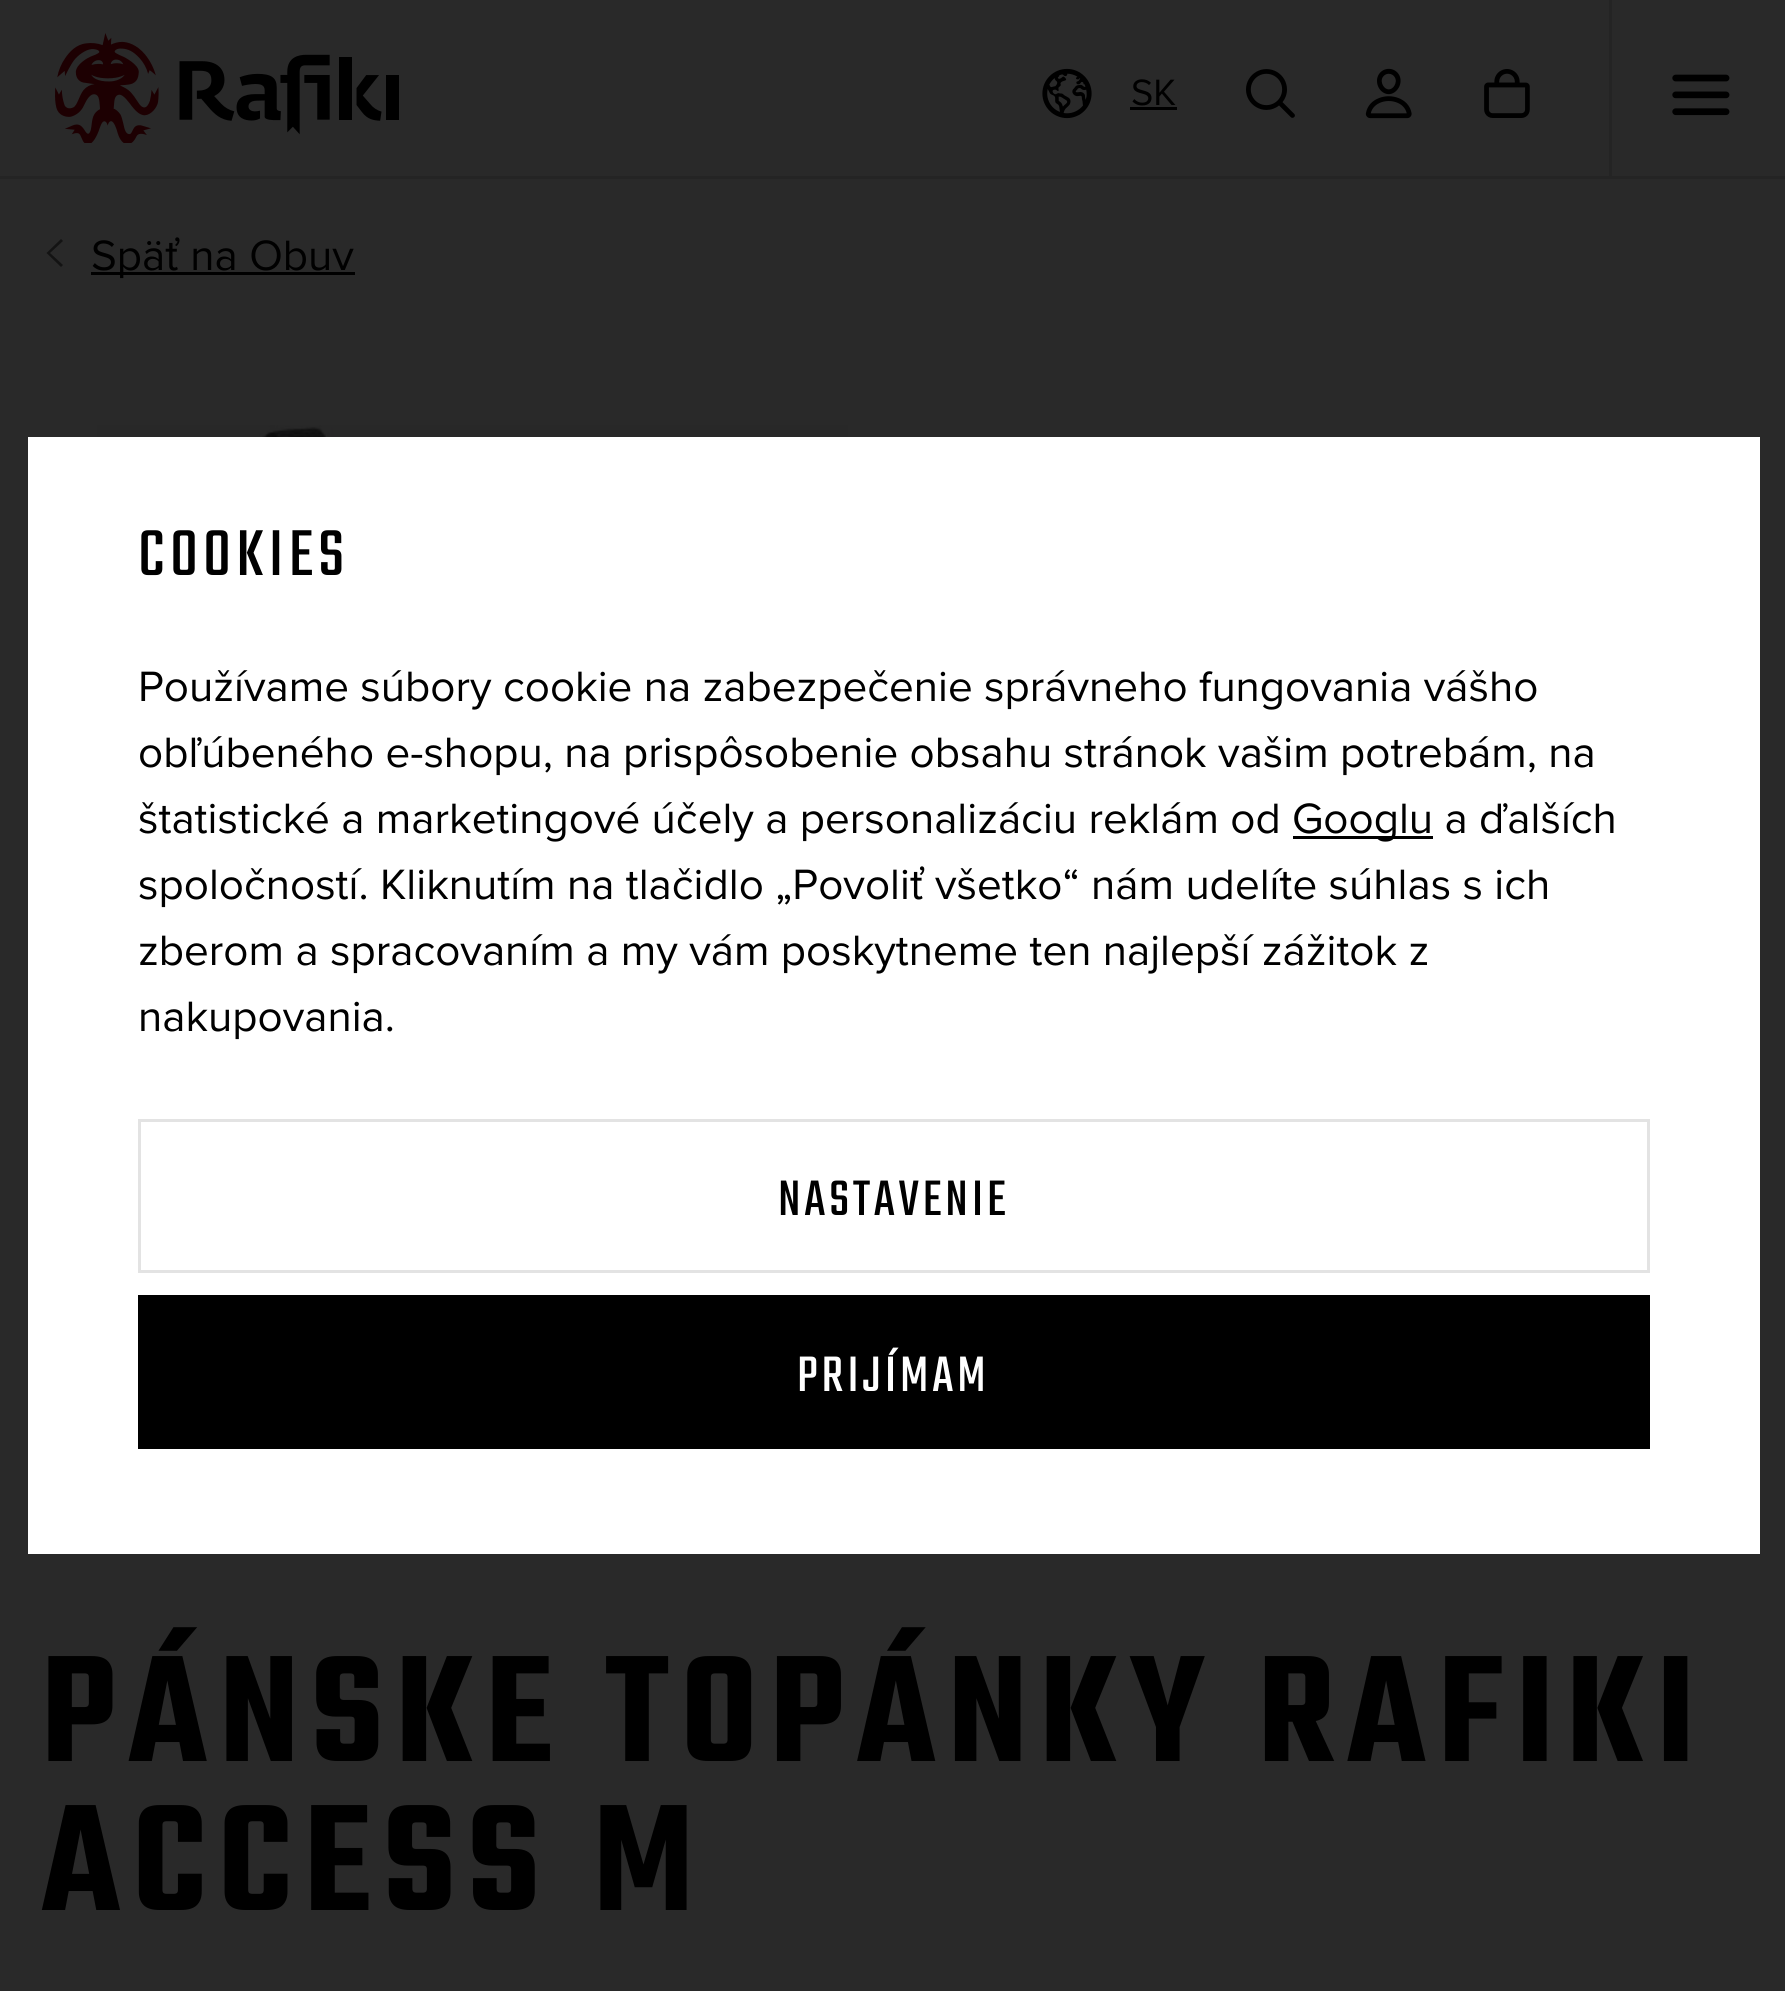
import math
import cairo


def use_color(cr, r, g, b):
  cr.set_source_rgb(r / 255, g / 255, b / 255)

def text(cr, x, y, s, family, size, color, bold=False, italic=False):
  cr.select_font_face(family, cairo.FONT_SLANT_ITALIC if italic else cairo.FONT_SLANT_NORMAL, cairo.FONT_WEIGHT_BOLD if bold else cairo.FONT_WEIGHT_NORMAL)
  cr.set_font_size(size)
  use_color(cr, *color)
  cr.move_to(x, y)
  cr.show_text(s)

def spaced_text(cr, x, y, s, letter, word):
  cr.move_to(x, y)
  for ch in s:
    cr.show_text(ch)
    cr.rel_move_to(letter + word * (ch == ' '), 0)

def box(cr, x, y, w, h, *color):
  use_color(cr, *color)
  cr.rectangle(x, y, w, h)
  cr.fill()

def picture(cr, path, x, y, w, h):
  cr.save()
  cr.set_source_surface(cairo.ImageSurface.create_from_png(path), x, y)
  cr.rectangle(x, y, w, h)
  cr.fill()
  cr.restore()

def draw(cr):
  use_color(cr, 41, 41, 41)
  cr.paint()
  picture(cr, "img_01.png", 55, 33, 344, 110)
  picture(cr, "img_02.png", 1042, 68, 50, 51)
  box(cr, 1130, 107, 47, 3, 0, 0, 0)
  picture(cr, "img_03.png", 1246, 69, 49, 49)
  picture(cr, "img_04.png", 1365, 68, 47, 51)
  picture(cr, "img_05.png", 1484, 69, 46, 49)
  box(cr, 1609, 0, 3, 176, 36, 36, 36)
  picture(cr, "img_06.png", 1672, 74, 58, 42)
  box(cr, 0, 176, 1785, 3, 36, 36, 36)
  use_color(cr, 19, 19, 19)
  cr.new_path()
  cr.move_to(63, 241)
  cr.line_to(50, 253)
  cr.line_to(63, 265)
  cr.line_to(61, 267)
  cr.line_to(46.5, 253)
  cr.line_to(61, 239)
  cr.close_path()
  cr.fill()
  box(cr, 91, 272, 264, 3, 0, 0, 0)
  box(cr, 28, 437, 1732, 1117, 255, 255, 255)
  box(cr, 1293, 836, 140, 3, 0, 0, 0)
  cr.rectangle(139.5, 1120.5, 1509, 151)
  use_color(cr, 227, 227, 227)
  cr.set_line_width(3)
  cr.stroke()
  box(cr, 138, 1295, 1512, 154, 0, 0, 0)
  picture(cr, "img_07.png", 97, 425, 751, 12)
  text(cr, 1131, 105, "SK", "Proxima Nova", 38, (0, 0, 0))
  text(cr, 91, 270, "Späť na Obuv", "Proxima Nova", 44, (0, 0, 0))
  cr.select_font_face("Teko")
  cr.set_font_size(71.5)
  spaced_text(cr, 138, 575, "COOKIES", 5, 0)
  text(cr, 138, 701, "Používame súbory cookie na zabezpečenie správneho fungovania vášho", "Proxima Nova", 44, (0, 0, 0))
  text(cr, 138, 767, "obľúbeného e-shopu, na prispôsobenie obsahu stránok vašim potrebám, na", "Proxima Nova", 44, (0, 0, 0))
  text(cr, 138, 833, "štatistické a marketingové účely a personalizáciu reklám od", "Proxima Nova", 44, (0, 0, 0))
  text(cr, 1292, 833, "Googlu a ďalších", "Proxima Nova", 44, (0, 0, 0))
  text(cr, 138, 899, "spoločností. Kliknutím na tlačidlo „Povoliť všetko“ nám udelíte súhlas s ich", "Proxima Nova", 44, (0, 0, 0))
  text(cr, 138, 965, "zberom a spracovaním a my vám poskytneme ten najlepší zážitok z", "Proxima Nova", 44, (0, 0, 0))
  text(cr, 138, 1031, "nakupovania.", "Proxima Nova", 44, (0, 0, 0))
  cr.select_font_face("Teko")
  cr.set_font_size(55)
  spaced_text(cr, 778, 1215, "NASTAVENIE", 3.8, 0)
  use_color(cr, 255, 255, 255)
  spaced_text(cr, 797, 1391, "PRIJÍMAM", 3.8, 0)
  cr.select_font_face("Teko SemiBold")
  cr.set_font_size(165)
  use_color(cr, 0, 0, 0)
  spaced_text(cr, 41, 1761, "PÁNSKE TOPÁNKY RAFIKI", 11.55, 0)
  spaced_text(cr, 41, 1910, "ACCESS M", 11.55, 0)


surface = cairo.ImageSurface(cairo.FORMAT_RGB24, 1785, 1991)
cr = cairo.Context(surface)
options = cairo.FontOptions()
options.set_hint_metrics(cairo.HINT_METRICS_OFF)
options.set_hint_style(cairo.HINT_STYLE_NONE)
cr.set_font_options(options)
cr.set_miter_limit(4)
draw(cr)
surface.write_to_png("out.png")
